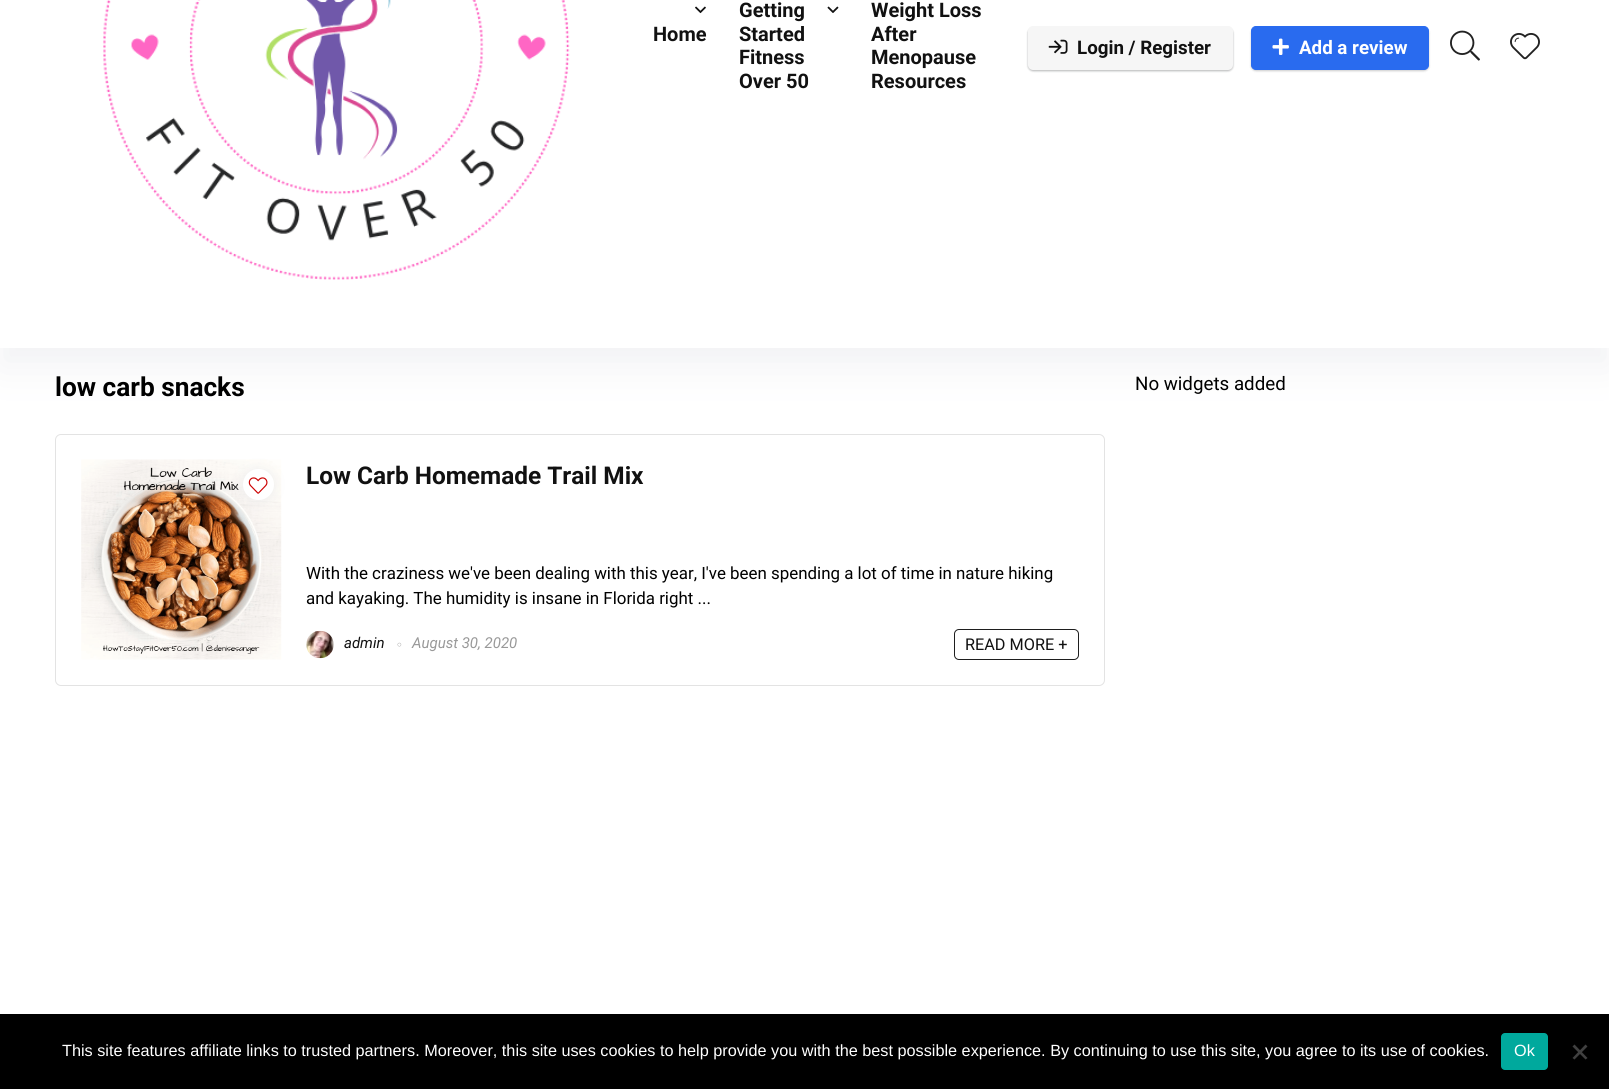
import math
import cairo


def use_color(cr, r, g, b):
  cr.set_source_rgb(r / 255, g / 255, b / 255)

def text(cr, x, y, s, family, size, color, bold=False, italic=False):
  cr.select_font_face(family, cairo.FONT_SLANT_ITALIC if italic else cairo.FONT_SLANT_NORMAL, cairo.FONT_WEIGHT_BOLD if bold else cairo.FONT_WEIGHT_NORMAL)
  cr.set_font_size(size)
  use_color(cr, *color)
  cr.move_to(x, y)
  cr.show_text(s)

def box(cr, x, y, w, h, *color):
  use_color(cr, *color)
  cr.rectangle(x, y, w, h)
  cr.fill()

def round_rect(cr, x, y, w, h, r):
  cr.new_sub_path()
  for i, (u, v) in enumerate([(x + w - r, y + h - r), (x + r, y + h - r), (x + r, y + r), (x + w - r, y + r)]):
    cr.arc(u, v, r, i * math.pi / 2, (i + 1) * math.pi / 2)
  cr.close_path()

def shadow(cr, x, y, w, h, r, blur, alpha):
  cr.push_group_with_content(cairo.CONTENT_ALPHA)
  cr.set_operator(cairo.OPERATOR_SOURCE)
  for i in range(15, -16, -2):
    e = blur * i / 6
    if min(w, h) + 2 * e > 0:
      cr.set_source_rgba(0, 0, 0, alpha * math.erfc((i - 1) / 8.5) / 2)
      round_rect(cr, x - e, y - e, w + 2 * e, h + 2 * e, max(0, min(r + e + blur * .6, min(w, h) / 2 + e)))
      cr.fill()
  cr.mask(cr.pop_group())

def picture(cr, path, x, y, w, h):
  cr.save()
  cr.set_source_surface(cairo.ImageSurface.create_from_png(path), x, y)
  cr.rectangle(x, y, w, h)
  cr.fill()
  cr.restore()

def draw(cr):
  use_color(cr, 255, 255, 255)
  cr.paint()
  cr.save()
  cr.set_fill_rule(cairo.FILL_RULE_EVEN_ODD)
  cr.new_path()
  cr.move_to(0, 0)
  cr.line_to(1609, 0)
  cr.line_to(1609, 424)
  cr.line_to(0, 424)
  cr.close_path()
  cr.move_to(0, -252)
  cr.line_to(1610, -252)
  cr.line_to(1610, 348)
  cr.line_to(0, 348)
  cr.close_path()
  cr.clip()
  use_color(cr, 119, 123, 146)
  shadow(cr, 0, -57, 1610, 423, 0, 19, 0.1)
  cr.restore()
  picture(cr, "img_01.png", 103, 0, 467, 280)
  picture(cr, "img_02.png", 695, 6, 11, 8)
  picture(cr, "img_03.png", 827, 6, 12, 7)
  use_color(cr, 0, 0, 0)
  shadow(cr, 1028, 28, 205, 43, 5, 1, 0.08)
  use_color(cr, 60, 64, 67)
  shadow(cr, 1028, 28, 205, 43, 5, 1, 0.3)
  use_color(cr, 246, 246, 246)
  round_rect(cr, 1028, 26, 205, 44, 5)
  cr.fill()
  picture(cr, "img_04.png", 1048, 39, 20, 15)
  use_color(cr, 0, 0, 0)
  shadow(cr, 1251, 28, 178, 43, 5, 1, 0.2)
  use_color(cr, 41, 107, 239)
  round_rect(cr, 1251.5, 26.5, 177, 43, 4.5)
  cr.fill_preserve()
  cr.set_line_width(1)
  cr.stroke()
  picture(cr, "img_05.png", 1272, 38, 17, 17)
  picture(cr, "img_06.png", 1450, 30, 30, 31)
  picture(cr, "img_07.png", 1510, 33, 30, 27)
  round_rect(cr, 55.5, 434.5, 1049, 251, 5.5)
  use_color(cr, 227, 227, 227)
  cr.stroke()
  picture(cr, "img_09.png", 81, 459, 201, 201)
  use_color(cr, 239, 239, 239)
  shadow(cr, 243, 469, 31, 31, 15.5, 6, 1)
  use_color(cr, 255, 255, 255)
  cr.arc(258.5, 484.5, 15.5, 0, 2 * math.pi)
  cr.fill()
  picture(cr, "img_08.png", 248, 477, 20, 17)
  picture(cr, "img_10.png", 306, 630, 28, 29)
  picture(cr, "img_11.png", 397, 642, 5, 5)
  round_rect(cr, 954.5, 629.5, 124, 30, 4.5)
  use_color(cr, 30, 30, 30)
  cr.stroke()
  box(cr, 0, 1014, 1609, 75, 0, 0, 0)
  use_color(cr, 0, 169, 157)
  round_rect(cr, 1501, 1033, 47, 37, 4)
  cr.fill()
  use_color(cr, 64, 64, 64)
  cr.new_path()
  cr.move_to(1585.5, 1044.5)
  cr.line_to(1587.5, 1046.5)
  cr.line_to(1574.5, 1059.5)
  cr.line_to(1572.5, 1058)
  cr.close_path()
  cr.fill()
  cr.new_path()
  cr.move_to(1572.5, 1046.5)
  cr.line_to(1574.5, 1044.5)
  cr.line_to(1587.5, 1058)
  cr.line_to(1585.5, 1059.5)
  cr.close_path()
  cr.fill()
  text(cr, 653, 41, "Home", "Roboto", 20, (17, 17, 17), bold=True)
  text(cr, 739, 17, "Getting", "Roboto", 20, (17, 17, 17), bold=True)
  text(cr, 739, 41, "Started", "Roboto", 20, (17, 17, 17), bold=True)
  text(cr, 739, 64, "Fitness", "Roboto", 20, (17, 17, 17), bold=True)
  text(cr, 739, 88, "Over 50", "Roboto", 20, (17, 17, 17), bold=True)
  text(cr, 871, 17, "Weight Loss", "Roboto", 20, (17, 17, 17), bold=True)
  text(cr, 871, 41, "After", "Roboto", 20, (17, 17, 17), bold=True)
  text(cr, 871, 64, "Menopause", "Roboto", 20, (17, 17, 17), bold=True)
  text(cr, 871, 88, "Resources", "Roboto", 20, (17, 17, 17), bold=True)
  text(cr, 1077, 54, "Login / Register", "Roboto", 18.75, (17, 17, 17), bold=True)
  text(cr, 1299, 54, "Add a review", "Roboto", 18.75, (255, 255, 255), bold=True)
  text(cr, 55, 396, "low carb snacks", "Roboto", 26.25, (0, 0, 0), bold=True)
  text(cr, 306, 484, "Low Carb Homemade Trail Mix", "Roboto", 24.4, (17, 17, 17), bold=True)
  text(cr, 306, 579, "With the craziness we've been dealing with this year, I've been spending a lot of time in nature hiking", "Roboto", 16.9, (0, 0, 0))
  text(cr, 306, 604, "and kayaking. The humidity is insane in Florida right ...", "Roboto", 16.9, (0, 0, 0))
  text(cr, 344, 648, "admin", "Roboto", 15, (17, 17, 17), italic=True)
  text(cr, 412, 648, "August 30, 2020", "Roboto", 15, (153, 153, 153), italic=True)
  text(cr, 965, 650, "READ MORE +", "Roboto", 16.25, (17, 17, 17))
  text(cr, 1135, 390, "No widgets added", "Roboto", 18.75, (0, 0, 0))
  text(cr, 62, 1056, "This site features affiliate links to trusted partners. Moreover, this site uses cookies to help provide you with the best possible experience. By continuing to use this site, you agree to its use of cookies.", "Liberation Sans", 16.25, (255, 255, 255))
  text(cr, 1514, 1056, "Ok", "Liberation Sans", 16.25, (255, 255, 255))


surface = cairo.ImageSurface(cairo.FORMAT_RGB24, 1609, 1089)
cr = cairo.Context(surface)
options = cairo.FontOptions()
options.set_hint_metrics(cairo.HINT_METRICS_OFF)
options.set_hint_style(cairo.HINT_STYLE_NONE)
cr.set_font_options(options)
cr.set_miter_limit(4)
draw(cr)
surface.write_to_png("out.png")
